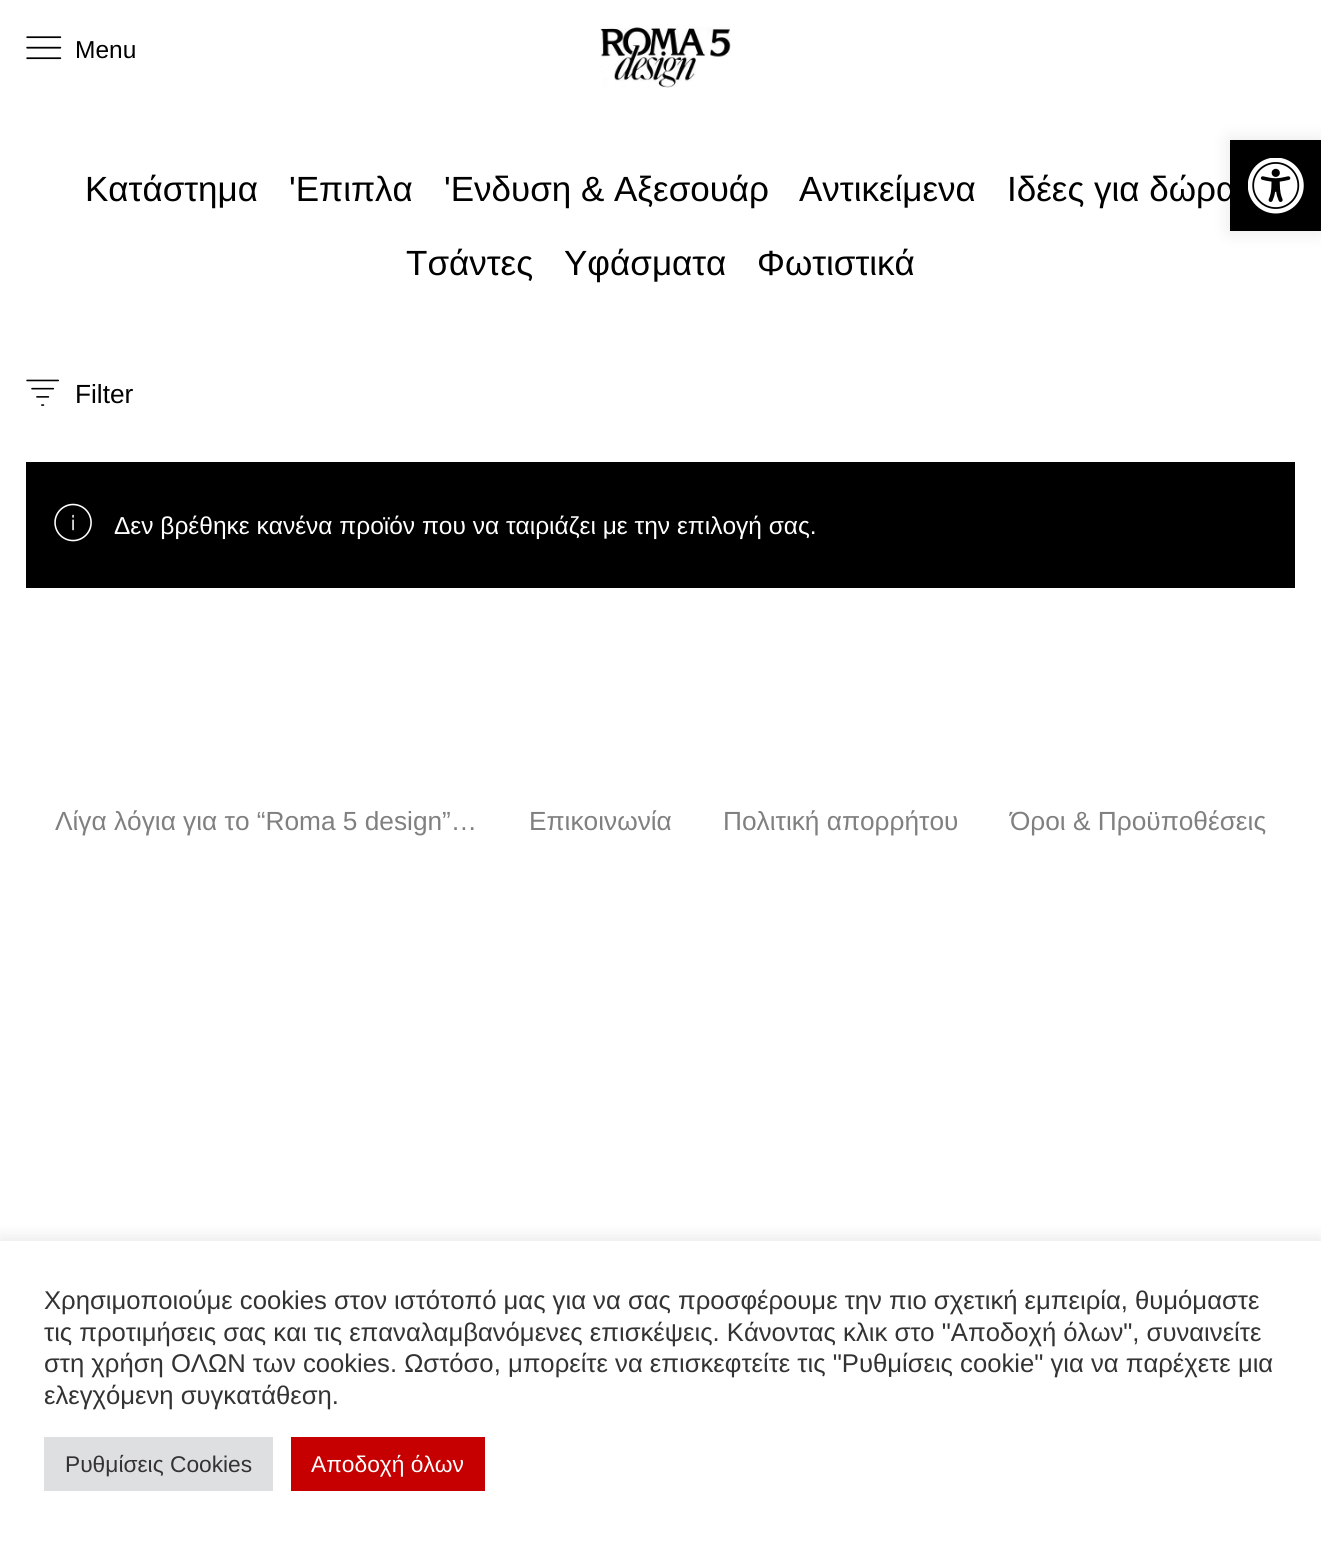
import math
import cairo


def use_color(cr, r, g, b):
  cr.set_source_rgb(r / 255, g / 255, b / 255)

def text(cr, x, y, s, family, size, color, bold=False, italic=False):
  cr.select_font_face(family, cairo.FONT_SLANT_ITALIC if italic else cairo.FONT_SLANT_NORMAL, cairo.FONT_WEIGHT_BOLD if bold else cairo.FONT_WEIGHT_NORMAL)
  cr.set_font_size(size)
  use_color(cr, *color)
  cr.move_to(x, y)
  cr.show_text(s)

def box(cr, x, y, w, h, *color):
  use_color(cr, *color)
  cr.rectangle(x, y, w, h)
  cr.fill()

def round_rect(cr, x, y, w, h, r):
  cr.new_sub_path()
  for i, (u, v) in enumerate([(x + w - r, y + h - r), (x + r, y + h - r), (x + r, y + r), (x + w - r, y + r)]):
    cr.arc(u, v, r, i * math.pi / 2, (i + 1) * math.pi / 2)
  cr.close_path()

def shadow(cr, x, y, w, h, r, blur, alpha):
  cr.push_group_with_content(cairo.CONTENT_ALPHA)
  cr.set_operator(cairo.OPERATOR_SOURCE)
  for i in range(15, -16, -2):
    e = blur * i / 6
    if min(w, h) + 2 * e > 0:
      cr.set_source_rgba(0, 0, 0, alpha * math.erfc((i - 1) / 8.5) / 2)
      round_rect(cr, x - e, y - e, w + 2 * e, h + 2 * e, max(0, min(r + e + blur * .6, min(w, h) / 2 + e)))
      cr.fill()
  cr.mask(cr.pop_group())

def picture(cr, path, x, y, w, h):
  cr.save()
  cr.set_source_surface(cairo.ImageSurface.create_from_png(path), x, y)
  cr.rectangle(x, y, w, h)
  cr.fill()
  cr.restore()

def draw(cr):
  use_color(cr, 255, 255, 255)
  cr.paint()
  picture(cr, "img_01.png", 26, 36, 36, 24)
  picture(cr, "img_02.png", 600, 26, 131, 62)
  picture(cr, "img_03.png", 26, 379, 33, 27)
  box(cr, 26, 462, 1269, 126, 0, 0, 0)
  picture(cr, "img_04.png", 54, 503, 38, 39)
  use_color(cr, 0, 0, 0)
  shadow(cr, 1230, 140, 91, 91, 0, 9, 0.1)
  box(cr, 1230, 140, 91, 91, 0, 0, 0)
  picture(cr, "img_05.png", 1248, 158, 56, 56)
  cr.save()
  cr.rectangle(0, 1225, 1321, 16)
  cr.clip()
  use_color(cr, 172, 171, 171)
  shadow(cr, 0, 1239, 1321, 303, 0, 9, 0.3)
  cr.restore()
  box(cr, 44, 1437, 229, 54, 222, 223, 224)
  box(cr, 291, 1437, 194, 54, 198, 0, 0)
  text(cr, 75, 58, "Menu", "Liberation Sans", 24.5, (0, 0, 0))
  text(cr, 85, 201, "Κατάστημα", "Liberation Sans", 35, (0, 0, 0))
  text(cr, 289, 201, "'Eπιπλα", "Liberation Sans", 35, (0, 0, 0))
  text(cr, 444, 201, "'Ενδυση & Αξεσουάρ", "Liberation Sans", 35, (0, 0, 0))
  text(cr, 799, 201, "Αντικείμενα", "Liberation Sans", 35, (0, 0, 0))
  text(cr, 1007, 201, "Ιδέες για δώρα", "Liberation Sans", 35, (0, 0, 0))
  text(cr, 406, 275, "Τσάντες", "Liberation Sans", 35, (0, 0, 0))
  text(cr, 564, 275, "Υφάσματα", "Liberation Sans", 35, (0, 0, 0))
  text(cr, 757, 275, "Φωτιστικά", "Liberation Sans", 35, (0, 0, 0))
  text(cr, 75, 403, "Filter", "Liberation Sans", 26.25, (0, 0, 0))
  text(cr, 114, 534, "Δεν βρέθηκε κανένα προϊόν που να ταιριάζει με την επιλογή σας.", "Liberation Sans", 24.5, (255, 255, 255))
  text(cr, 55, 830, "Λίγα λόγια για το “Roma 5 design”…", "Liberation Sans", 26.25, (128, 128, 128))
  text(cr, 529, 830, "Επικοινωνία", "Liberation Sans", 26.25, (128, 128, 128))
  text(cr, 723, 830, "Πολιτική απορρήτου", "Liberation Sans", 26.25, (128, 128, 128))
  text(cr, 1010, 830, "Όροι & Προϋποθέσεις", "Liberation Sans", 26.25, (128, 128, 128))
  text(cr, 44, 1309, "Χρησιμοποιούμε cookies στον ιστότοπό μας για να σας προσφέρουμε την πιο σχετική εμπειρία, θυμόμαστε", "Liberation Sans", 25.65, (51, 51, 51))
  text(cr, 44, 1341, "τις προτιμήσεις σας και τις επαναλαμβανόμενες επισκέψεις. Κάνοντας κλικ στο \"Αποδοχή όλων\", συναινείτε", "Liberation Sans", 25.65, (51, 51, 51))
  text(cr, 44, 1372, "στη χρήση ΟΛΩΝ των cookies. Ωστόσο, μπορείτε να επισκεφτείτε τις \"Ρυθμίσεις cookie\" για να παρέχετε μια", "Liberation Sans", 25.65, (51, 51, 51))
  text(cr, 44, 1404, "ελεγχόμενη συγκατάθεση.", "Liberation Sans", 25.65, (51, 51, 51))
  text(cr, 65, 1472, "Ρυθμίσεις Cookies", "Liberation Sans", 22.75, (51, 51, 51))
  text(cr, 311, 1472, "Αποδοχή όλων", "Liberation Sans", 22.75, (255, 255, 255))


surface = cairo.ImageSurface(cairo.FORMAT_RGB24, 1321, 1542)
cr = cairo.Context(surface)
options = cairo.FontOptions()
options.set_hint_metrics(cairo.HINT_METRICS_OFF)
options.set_hint_style(cairo.HINT_STYLE_NONE)
cr.set_font_options(options)
cr.set_miter_limit(4)
draw(cr)
surface.write_to_png("out.png")
